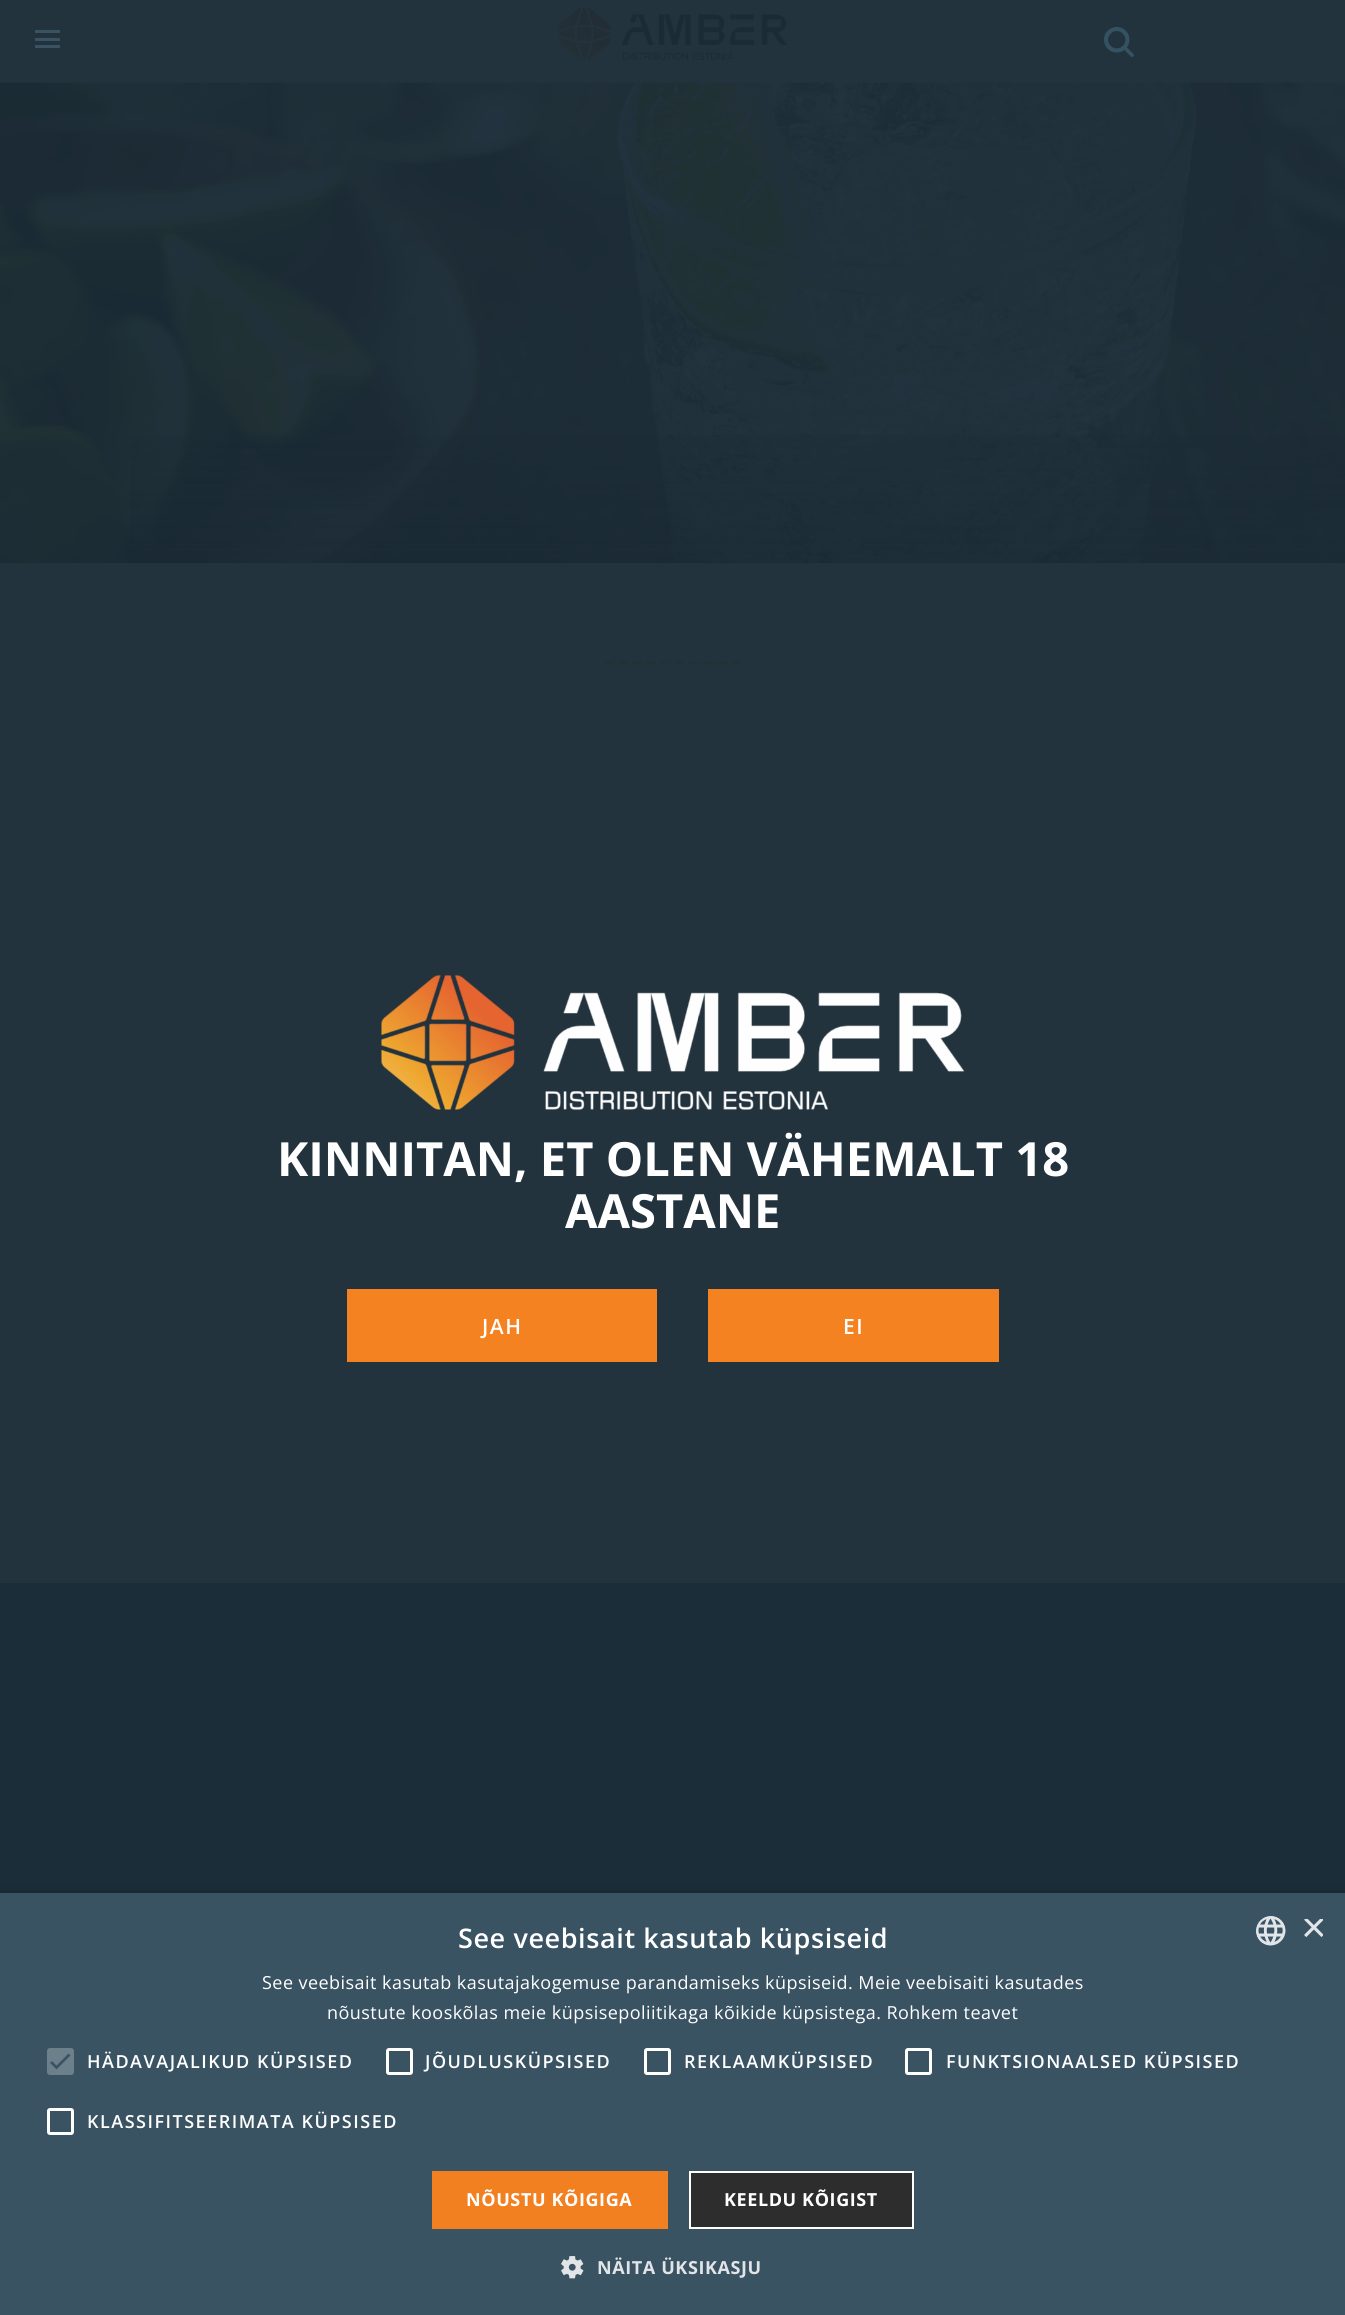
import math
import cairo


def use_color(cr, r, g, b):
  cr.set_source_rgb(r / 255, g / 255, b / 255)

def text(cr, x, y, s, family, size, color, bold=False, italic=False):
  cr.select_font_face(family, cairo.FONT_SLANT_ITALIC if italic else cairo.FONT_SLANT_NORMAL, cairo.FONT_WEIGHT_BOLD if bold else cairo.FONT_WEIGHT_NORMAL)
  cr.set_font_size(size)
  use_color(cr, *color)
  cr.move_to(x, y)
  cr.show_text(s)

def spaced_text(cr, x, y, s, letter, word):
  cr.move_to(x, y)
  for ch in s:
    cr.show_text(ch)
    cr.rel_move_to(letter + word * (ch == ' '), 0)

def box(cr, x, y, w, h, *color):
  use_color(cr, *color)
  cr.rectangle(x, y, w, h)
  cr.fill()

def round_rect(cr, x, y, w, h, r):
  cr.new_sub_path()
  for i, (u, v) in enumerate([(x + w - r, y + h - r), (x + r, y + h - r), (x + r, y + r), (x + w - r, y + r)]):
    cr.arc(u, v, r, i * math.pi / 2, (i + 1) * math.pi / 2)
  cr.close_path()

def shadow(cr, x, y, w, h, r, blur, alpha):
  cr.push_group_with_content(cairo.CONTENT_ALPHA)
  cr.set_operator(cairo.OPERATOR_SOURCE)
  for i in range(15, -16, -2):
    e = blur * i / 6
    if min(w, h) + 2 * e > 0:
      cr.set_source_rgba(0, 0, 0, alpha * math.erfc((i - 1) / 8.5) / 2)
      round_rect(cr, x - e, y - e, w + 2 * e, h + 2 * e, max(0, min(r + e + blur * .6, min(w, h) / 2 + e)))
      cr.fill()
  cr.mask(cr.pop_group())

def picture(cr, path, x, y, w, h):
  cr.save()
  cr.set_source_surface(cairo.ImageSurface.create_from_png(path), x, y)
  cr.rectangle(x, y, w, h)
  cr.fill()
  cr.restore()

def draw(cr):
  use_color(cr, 35, 51, 62)
  cr.paint()
  box(cr, 35, 30, 25, 3, 57, 83, 99)
  box(cr, 35, 38, 25, 3, 57, 83, 99)
  box(cr, 35, 45, 25, 3, 57, 83, 99)
  picture(cr, "img_01.png", 558, 7, 230, 53)
  picture(cr, "img_02.png", 1104, 27, 30, 30)
  box(cr, 0, 83, 1345, 480, 25, 41, 52)
  picture(cr, "img_03.png", 0, 82, 1345, 481)
  gradient = cairo.LinearGradient(673, 322, 673, 563)
  gradient.add_color_stop_rgba(0, 0.098, 0.161, 0.204, 0)
  gradient.add_color_stop_rgba(1, 0.098, 0.161, 0.204, 0.49)
  cr.set_source(gradient)
  cr.rectangle(130, 435, 1215, 128)
  cr.fill()
  cr.new_path()
  cr.move_to(604.5, 663)
  cr.line_to(741, 663)
  use_color(cr, 35, 48, 52)
  cr.set_line_width(3)
  cr.set_dash([9, 5.16])
  cr.stroke()
  box(cr, 0, 1583, 1345, 310, 27, 45, 56)
  picture(cr, "img_04.png", 381, 975, 584, 135)
  box(cr, 347, 1289, 310, 73, 245, 130, 32)
  box(cr, 708, 1289, 291, 73, 245, 130, 32)
  use_color(cr, 0, 0, 0)
  shadow(cr, 2, 1896, 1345, 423, 0, 6, 0.35)
  box(cr, 0, 1893, 1345, 422, 57, 83, 99)
  picture(cr, "img_05.png", 1256, 1916, 30, 30)
  use_color(cr, 108, 128, 140)
  round_rect(cr, 47, 2048, 27, 27, 3)
  cr.fill()
  cr.new_path()
  cr.move_to(51, 2062)
  cr.line_to(56.5, 2067.5)
  cr.line_to(69.5, 2054.5)
  use_color(cr, 57, 83, 99)
  cr.set_line_width(2.7)
  cr.set_dash([])
  cr.stroke()
  round_rect(cr, 387.5, 2049.5, 24, 24, 1.5)
  use_color(cr, 255, 255, 255)
  cr.set_line_width(3)
  cr.stroke()
  round_rect(cr, 645.5, 2049.5, 24, 24, 1.5)
  cr.stroke()
  round_rect(cr, 906.5, 2049.5, 24, 24, 1.5)
  cr.stroke()
  round_rect(cr, 48.5, 2109.5, 24, 24, 1.5)
  cr.stroke()
  box(cr, 432, 2171, 236, 58, 243, 128, 32)
  use_color(cr, 45, 45, 45)
  cr.rectangle(690, 2172, 223, 56)
  cr.fill_preserve()
  use_color(cr, 255, 255, 255)
  cr.set_line_width(2)
  cr.stroke()
  picture(cr, "img_06.png", 561, 2256, 23, 23)
  text(cr, 277, 1176, "KINNITAN, ET OLEN VÄHEMALT 18", "Open Sans", 47.1, (255, 255, 255), bold=True)
  text(cr, 565, 1228, "AASTANE", "Open Sans", 47.1, (255, 255, 255), bold=True)
  cr.select_font_face("Open Sans SemiBold")
  cr.set_font_size(21)
  spaced_text(cr, 482, 1334, "JAH", 1.5, 0)
  spaced_text(cr, 843, 1334, "EI", 1.5, 0)
  cr.set_font_size(27)
  spaced_text(cr, 458, 1948, "See veebisait kasutab küpsiseid", 0.6, 0)
  cr.save()
  cr.rectangle(1301, 1919, 22, 22)
  cr.clip()
  text(cr, 1301, 1942, "×", "Liberation Sans", 44, (225, 229, 232))
  cr.restore()
  cr.select_font_face("Open Sans")
  cr.set_font_size(18)
  spaced_text(cr, 262, 1989, "See veebisait kasutab kasutajakogemuse parandamiseks küpsiseid. Meie veebisaiti kasutades", 0.45, 0)
  spaced_text(cr, 327, 2019, "nõustute kooskõlas meie küpsisepoliitikaga kõikide küpsistega. Rohkem teavet", 0.45, 0)
  cr.select_font_face("Open Sans SemiBold")
  spaced_text(cr, 87, 2068, "HÄDAVAJALIKUD KÜPSISED", 1.5, 0)
  spaced_text(cr, 425, 2068, "JÕUDLUSKÜPSISED", 1.5, 0)
  spaced_text(cr, 684, 2068, "REKLAAMKÜPSISED", 1.5, 0)
  spaced_text(cr, 946, 2068, "FUNKTSIONAALSED KÜPSISED", 1.5, 0)
  spaced_text(cr, 87, 2128, "KLASSIFITSEERIMATA KÜPSISED", 1.5, 0)
  cr.select_font_face("Open Sans", cairo.FONT_SLANT_NORMAL, cairo.FONT_WEIGHT_BOLD)
  spaced_text(cr, 466, 2206, "NÕUSTU KÕIGIGA", 0.6, 0)
  spaced_text(cr, 724, 2206, "KEELDU KÕIGIST", 0.6, 0)
  use_color(cr, 225, 229, 232)
  spaced_text(cr, 597, 2274, "NÄITA ÜKSIKASJU", 0.6, 0)


surface = cairo.ImageSurface(cairo.FORMAT_RGB24, 1345, 2315)
cr = cairo.Context(surface)
options = cairo.FontOptions()
options.set_hint_metrics(cairo.HINT_METRICS_OFF)
options.set_hint_style(cairo.HINT_STYLE_NONE)
cr.set_font_options(options)
cr.set_miter_limit(4)
draw(cr)
surface.write_to_png("out.png")
